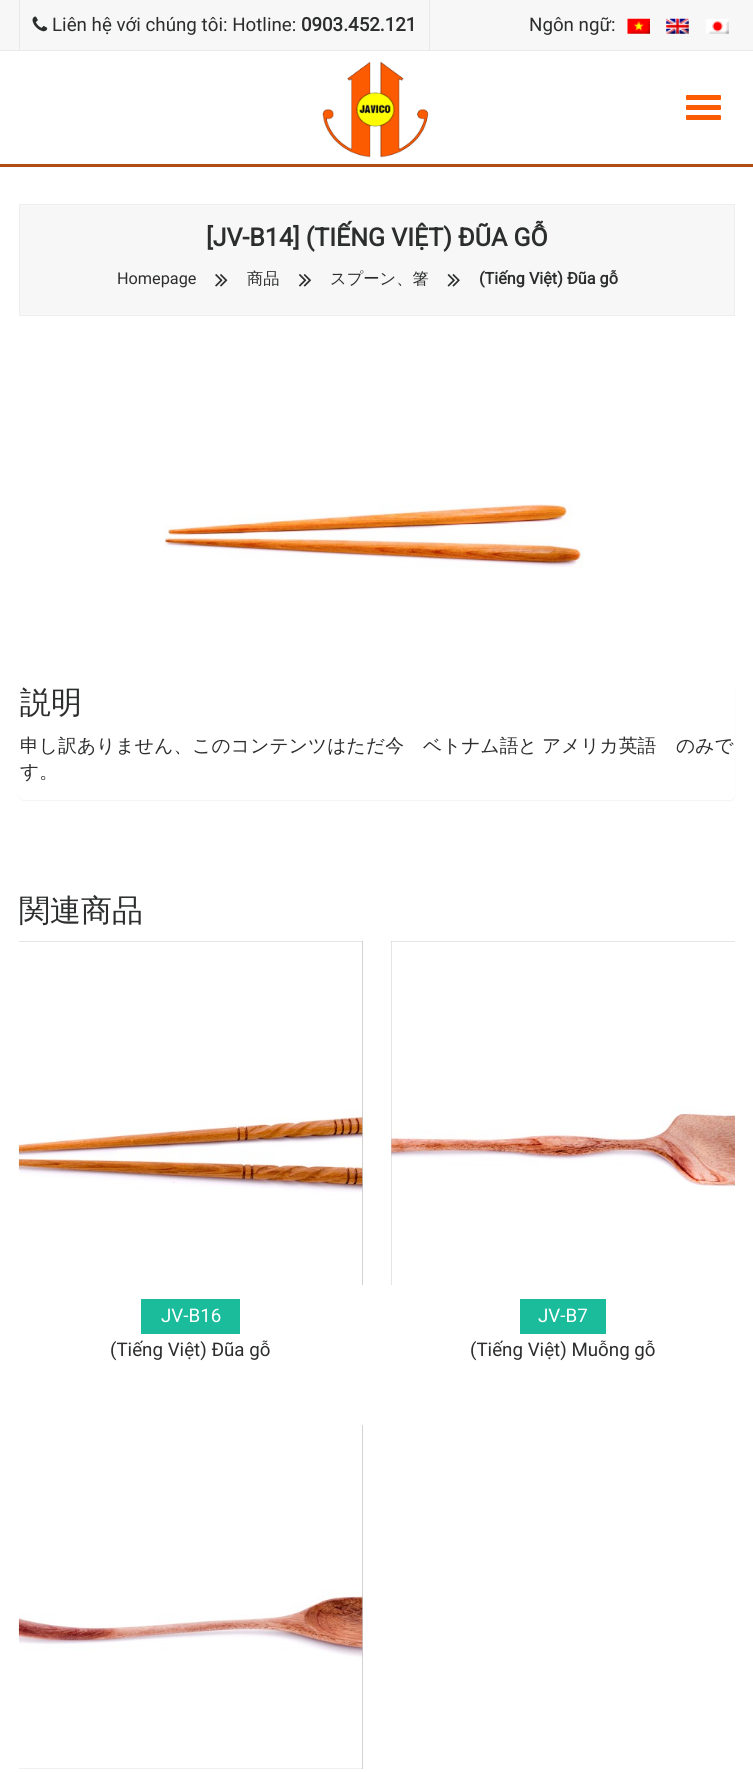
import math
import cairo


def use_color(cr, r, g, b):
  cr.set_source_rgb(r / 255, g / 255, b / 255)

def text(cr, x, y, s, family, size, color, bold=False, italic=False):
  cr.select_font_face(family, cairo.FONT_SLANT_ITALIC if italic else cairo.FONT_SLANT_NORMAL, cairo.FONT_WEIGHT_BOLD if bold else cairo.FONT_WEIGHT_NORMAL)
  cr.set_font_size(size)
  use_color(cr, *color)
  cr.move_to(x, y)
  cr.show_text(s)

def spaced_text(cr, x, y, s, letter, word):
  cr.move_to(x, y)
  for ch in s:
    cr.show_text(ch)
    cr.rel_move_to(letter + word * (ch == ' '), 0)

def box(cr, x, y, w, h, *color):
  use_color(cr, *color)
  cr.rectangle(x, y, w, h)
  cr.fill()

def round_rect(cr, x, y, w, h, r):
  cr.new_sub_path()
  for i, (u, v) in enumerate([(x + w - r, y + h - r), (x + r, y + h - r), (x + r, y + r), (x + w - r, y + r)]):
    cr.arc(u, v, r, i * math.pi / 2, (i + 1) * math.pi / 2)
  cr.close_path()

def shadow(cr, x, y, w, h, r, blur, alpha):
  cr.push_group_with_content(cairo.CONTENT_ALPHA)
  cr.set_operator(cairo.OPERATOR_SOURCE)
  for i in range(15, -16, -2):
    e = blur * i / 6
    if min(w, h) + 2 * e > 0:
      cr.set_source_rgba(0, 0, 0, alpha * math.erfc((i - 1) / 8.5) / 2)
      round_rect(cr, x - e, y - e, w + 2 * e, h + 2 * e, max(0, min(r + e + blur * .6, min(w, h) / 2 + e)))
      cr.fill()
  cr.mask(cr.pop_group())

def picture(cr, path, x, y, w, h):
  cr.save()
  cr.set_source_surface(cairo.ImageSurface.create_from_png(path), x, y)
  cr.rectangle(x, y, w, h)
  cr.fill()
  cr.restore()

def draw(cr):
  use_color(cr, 255, 255, 255)
  cr.paint()
  box(cr, 0, 164, 753, 3, 175, 77, 18)
  box(cr, 0, 0, 753, 50, 247, 247, 247)
  box(cr, 0, 50, 753, 1, 234, 234, 234)
  box(cr, 429, 0, 1, 50, 232, 232, 232)
  box(cr, 19, 0, 1, 50, 232, 232, 232)
  picture(cr, "img_01.png", 32, 16, 16, 16)
  picture(cr, "img_02.png", 627, 18, 23, 16)
  picture(cr, "img_03.png", 666, 18, 23, 16)
  picture(cr, "img_04.png", 706, 19, 23, 15)
  picture(cr, "img_05.png", 322, 61, 107, 97)
  use_color(cr, 252, 91, 1)
  round_rect(cr, 686, 95, 35, 5, 1)
  cr.fill()
  round_rect(cr, 686, 105, 35, 5, 1)
  cr.fill()
  round_rect(cr, 686, 115, 35, 5, 1)
  cr.fill()
  use_color(cr, 247, 247, 247)
  cr.rectangle(19.5, 204.5, 715, 111)
  cr.fill_preserve()
  use_color(cr, 238, 238, 238)
  cr.set_line_width(1)
  cr.stroke()
  picture(cr, "img_06.png", 215, 274, 13, 13)
  picture(cr, "img_07.png", 299, 274, 12, 13)
  picture(cr, "img_08.png", 447, 274, 13, 13)
  picture(cr, "img_09.png", 164, 504, 419, 64)
  use_color(cr, 0, 0, 0)
  shadow(cr, 19, 686, 716, 115, 5, 0.5, 0.05)
  use_color(cr, 255, 255, 255)
  round_rect(cr, 19, 685, 716, 115, 5)
  cr.fill()
  box(cr, 19, 941, 344, 344, 195, 195, 195)
  picture(cr, "img_10.png", 18, 941, 345, 344)
  box(cr, 141, 1299, 99, 35, 26, 188, 156)
  box(cr, 391, 941, 344, 344, 195, 195, 195)
  picture(cr, "img_11.png", 391, 941, 344, 344)
  box(cr, 520, 1299, 86, 35, 26, 188, 156)
  box(cr, 19, 1425, 344, 344, 195, 195, 195)
  picture(cr, "img_12.png", 18, 1425, 345, 344)
  text(cr, 52, 31, "Liên hệ với chúng tôi: Hotline:", "Roboto", 18.75, (44, 45, 45))
  text(cr, 301, 31, "0903.452.121", "Roboto", 18.75, (44, 45, 45), bold=True)
  text(cr, 529, 31, "Ngôn ngữ:", "Roboto", 18.75, (44, 45, 45))
  text(cr, 206, 246, "[JV-B14] (TIẾNG VIỆT) ĐŨA GỖ", "Roboto", 25, (44, 45, 45), bold=True)
  text(cr, 117, 284, "Homepage", "Roboto", 16.25, (44, 45, 45))
  text(cr, 247, 284, "商品", "WenQuanYi Zen Hei Medium", 16.25, (44, 45, 45))
  text(cr, 330, 284, "スプーン、箸", "WenQuanYi Zen Hei Medium", 16.25, (44, 45, 45))
  text(cr, 479, 284, "(Tiếng Việt) Đũa gỗ", "Roboto", 16.25, (44, 45, 45), bold=True)
  text(cr, 20, 713, "説明", "WenQuanYi Zen Hei Medium", 31, (44, 45, 45))
  cr.set_font_size(18.75)
  spaced_text(cr, 20, 752, "申し訳ありません、このコンテンツはただ今", 0.1, 0)
  text(cr, 423, 752, "ベトナム語", "WenQuanYi Zen Hei Medium", 18.75, (44, 45, 45))
  text(cr, 518, 752, "と", "WenQuanYi Zen Hei Medium", 18.75, (44, 45, 45))
  text(cr, 542, 752, "アメリカ英語", "WenQuanYi Zen Hei Medium", 18.75, (44, 45, 45))
  text(cr, 676, 752, "のみで", "WenQuanYi Zen Hei Medium", 18.75, (44, 45, 45))
  text(cr, 20, 778, "す。", "WenQuanYi Zen Hei Medium", 18.75, (44, 45, 45))
  text(cr, 19, 921, "関連商品", "WenQuanYi Zen Hei Medium", 31, (44, 45, 45))
  text(cr, 161, 1322, "JV-B16", "Roboto", 18.75, (255, 255, 255))
  text(cr, 110, 1356, "(Tiếng Việt) Đũa gỗ", "Roboto", 18.75, (44, 45, 45))
  text(cr, 538, 1322, "JV-B7", "Roboto", 18.75, (255, 255, 255))
  text(cr, 470, 1356, "(Tiếng Việt) Muỗng gỗ", "Roboto", 18.75, (44, 45, 45))


surface = cairo.ImageSurface(cairo.FORMAT_RGB24, 753, 1772)
cr = cairo.Context(surface)
options = cairo.FontOptions()
options.set_hint_metrics(cairo.HINT_METRICS_OFF)
options.set_hint_style(cairo.HINT_STYLE_NONE)
cr.set_font_options(options)
cr.set_miter_limit(4)
draw(cr)
surface.write_to_png("out.png")
